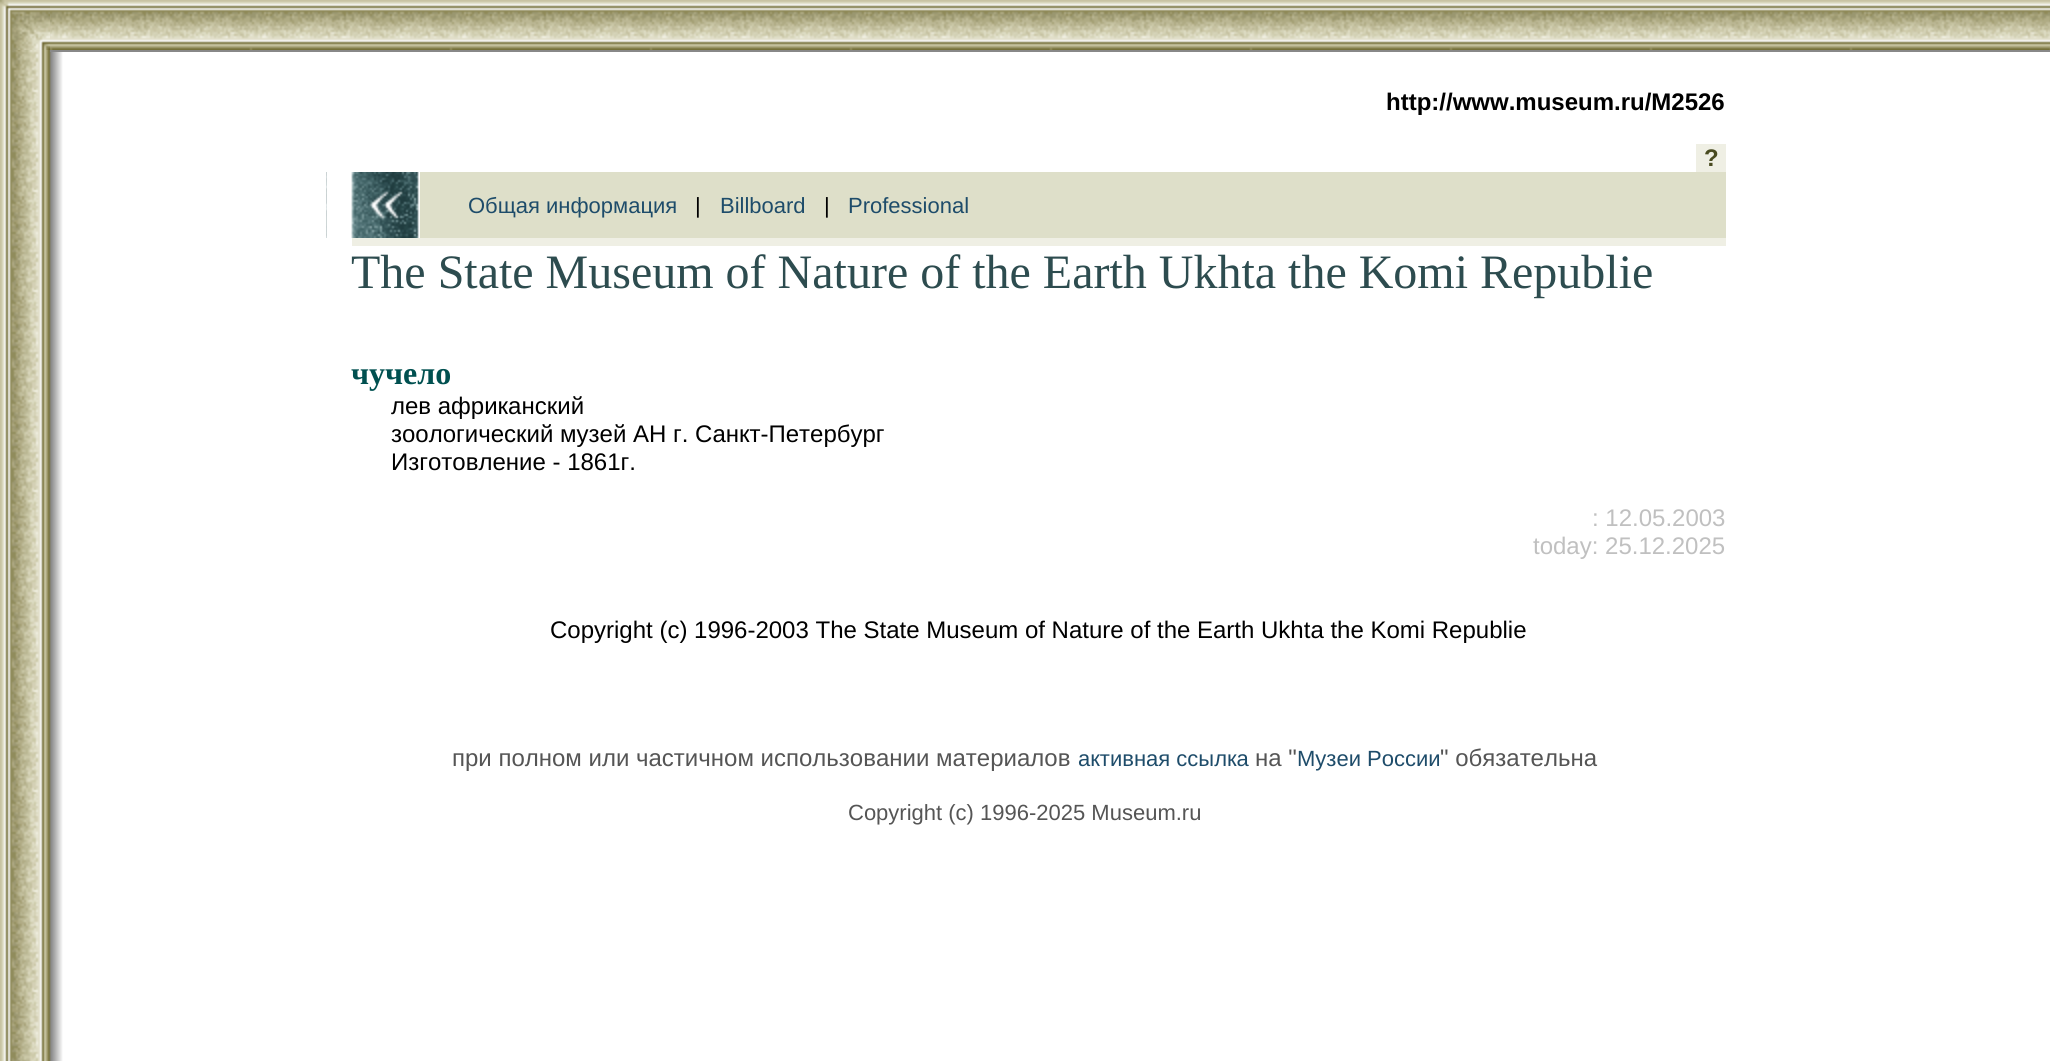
import math
import cairo


def use_color(cr, r, g, b):
  cr.set_source_rgb(r / 255, g / 255, b / 255)

def text(cr, x, y, s, family, size, color, bold=False, italic=False):
  cr.select_font_face(family, cairo.FONT_SLANT_ITALIC if italic else cairo.FONT_SLANT_NORMAL, cairo.FONT_WEIGHT_BOLD if bold else cairo.FONT_WEIGHT_NORMAL)
  cr.set_font_size(size)
  use_color(cr, *color)
  cr.move_to(x, y)
  cr.show_text(s)

def box(cr, x, y, w, h, *color):
  use_color(cr, *color)
  cr.rectangle(x, y, w, h)
  cr.fill()

def picture(cr, path, x, y, w, h):
  cr.save()
  cr.set_source_surface(cairo.ImageSurface.create_from_png(path), x, y)
  cr.rectangle(x, y, w, h)
  cr.fill()
  cr.restore()

def draw(cr):
  use_color(cr, 255, 255, 255)
  cr.paint()
  picture(cr, "img_01.png", 0, 50, 63, 1011)
  picture(cr, "img_02.png", 0, 0, 50, 50)
  picture(cr, "img_03.png", 50, 0, 2000, 50)
  box(cr, 50, 50, 2000, 2, 136, 136, 136)
  box(cr, 1696, 144, 30, 28, 239, 239, 228)
  picture(cr, "img_04.png", 326, 172, 93, 66)
  box(cr, 420, 172, 1306, 66, 222, 223, 201)
  box(cr, 352, 238, 1374, 8, 239, 239, 228)
  text(cr, 1386, 110, "http://www.museum.ru/M2526", "Liberation Sans", 24, (0, 0, 0), bold=True)
  text(cr, 1704, 166, "?", "Liberation Sans", 24, (73, 75, 32), bold=True)
  text(cr, 468, 213, "Общая информация", "Liberation Sans", 22, (30, 76, 106))
  text(cr, 695, 213, "|", "Liberation Sans", 22, (0, 0, 0))
  text(cr, 720, 213, "Billboard", "Liberation Sans", 22, (30, 76, 106))
  text(cr, 824, 213, "|", "Liberation Sans", 22, (0, 0, 0))
  text(cr, 848, 213, "Professional", "Liberation Sans", 22, (30, 76, 106))
  text(cr, 351, 288, "The State Museum of Nature of the Earth Ukhta the Komi Republie", "Liberation Serif", 48, (45, 76, 79))
  text(cr, 351, 384, "чучело", "Liberation Serif", 32, (0, 80, 80), bold=True)
  text(cr, 391, 414, "лев африканский", "Liberation Sans", 24, (0, 0, 0))
  text(cr, 391, 442, "зоологический музей АН г. Санкт-Петербург", "Liberation Sans", 24, (0, 0, 0))
  text(cr, 391, 470, "Изготовление - 1861г.", "Liberation Sans", 24, (0, 0, 0))
  text(cr, 1592, 526, ": 12.05.2003", "Liberation Sans", 24, (192, 192, 192))
  text(cr, 1533, 554, "today: 25.12.2025", "Liberation Sans", 24, (192, 192, 192))
  text(cr, 550, 638, "Copyright (c) 1996-2003 The State Museum of Nature of the Earth Ukhta the Komi Republie", "Liberation Sans", 24, (0, 0, 0))
  text(cr, 452, 766, "при полном или частичном использовании материалов", "Liberation Sans", 24, (85, 85, 85))
  text(cr, 1078, 766, "активная ссылка", "Liberation Sans", 22, (30, 76, 106))
  text(cr, 1255, 766, "на \"", "Liberation Sans", 24, (85, 85, 85))
  text(cr, 1297, 766, "Музеи России", "Liberation Sans", 22, (30, 76, 106))
  text(cr, 1440, 766, "\" обязательна", "Liberation Sans", 24, (85, 85, 85))
  text(cr, 848, 820, "Copyright (c) 1996-2025 Museum.ru", "Liberation Sans", 22, (85, 85, 85))


surface = cairo.ImageSurface(cairo.FORMAT_RGB24, 2050, 1061)
cr = cairo.Context(surface)
options = cairo.FontOptions()
options.set_hint_metrics(cairo.HINT_METRICS_OFF)
options.set_hint_style(cairo.HINT_STYLE_NONE)
cr.set_font_options(options)
cr.set_miter_limit(4)
draw(cr)
surface.write_to_png("out.png")
